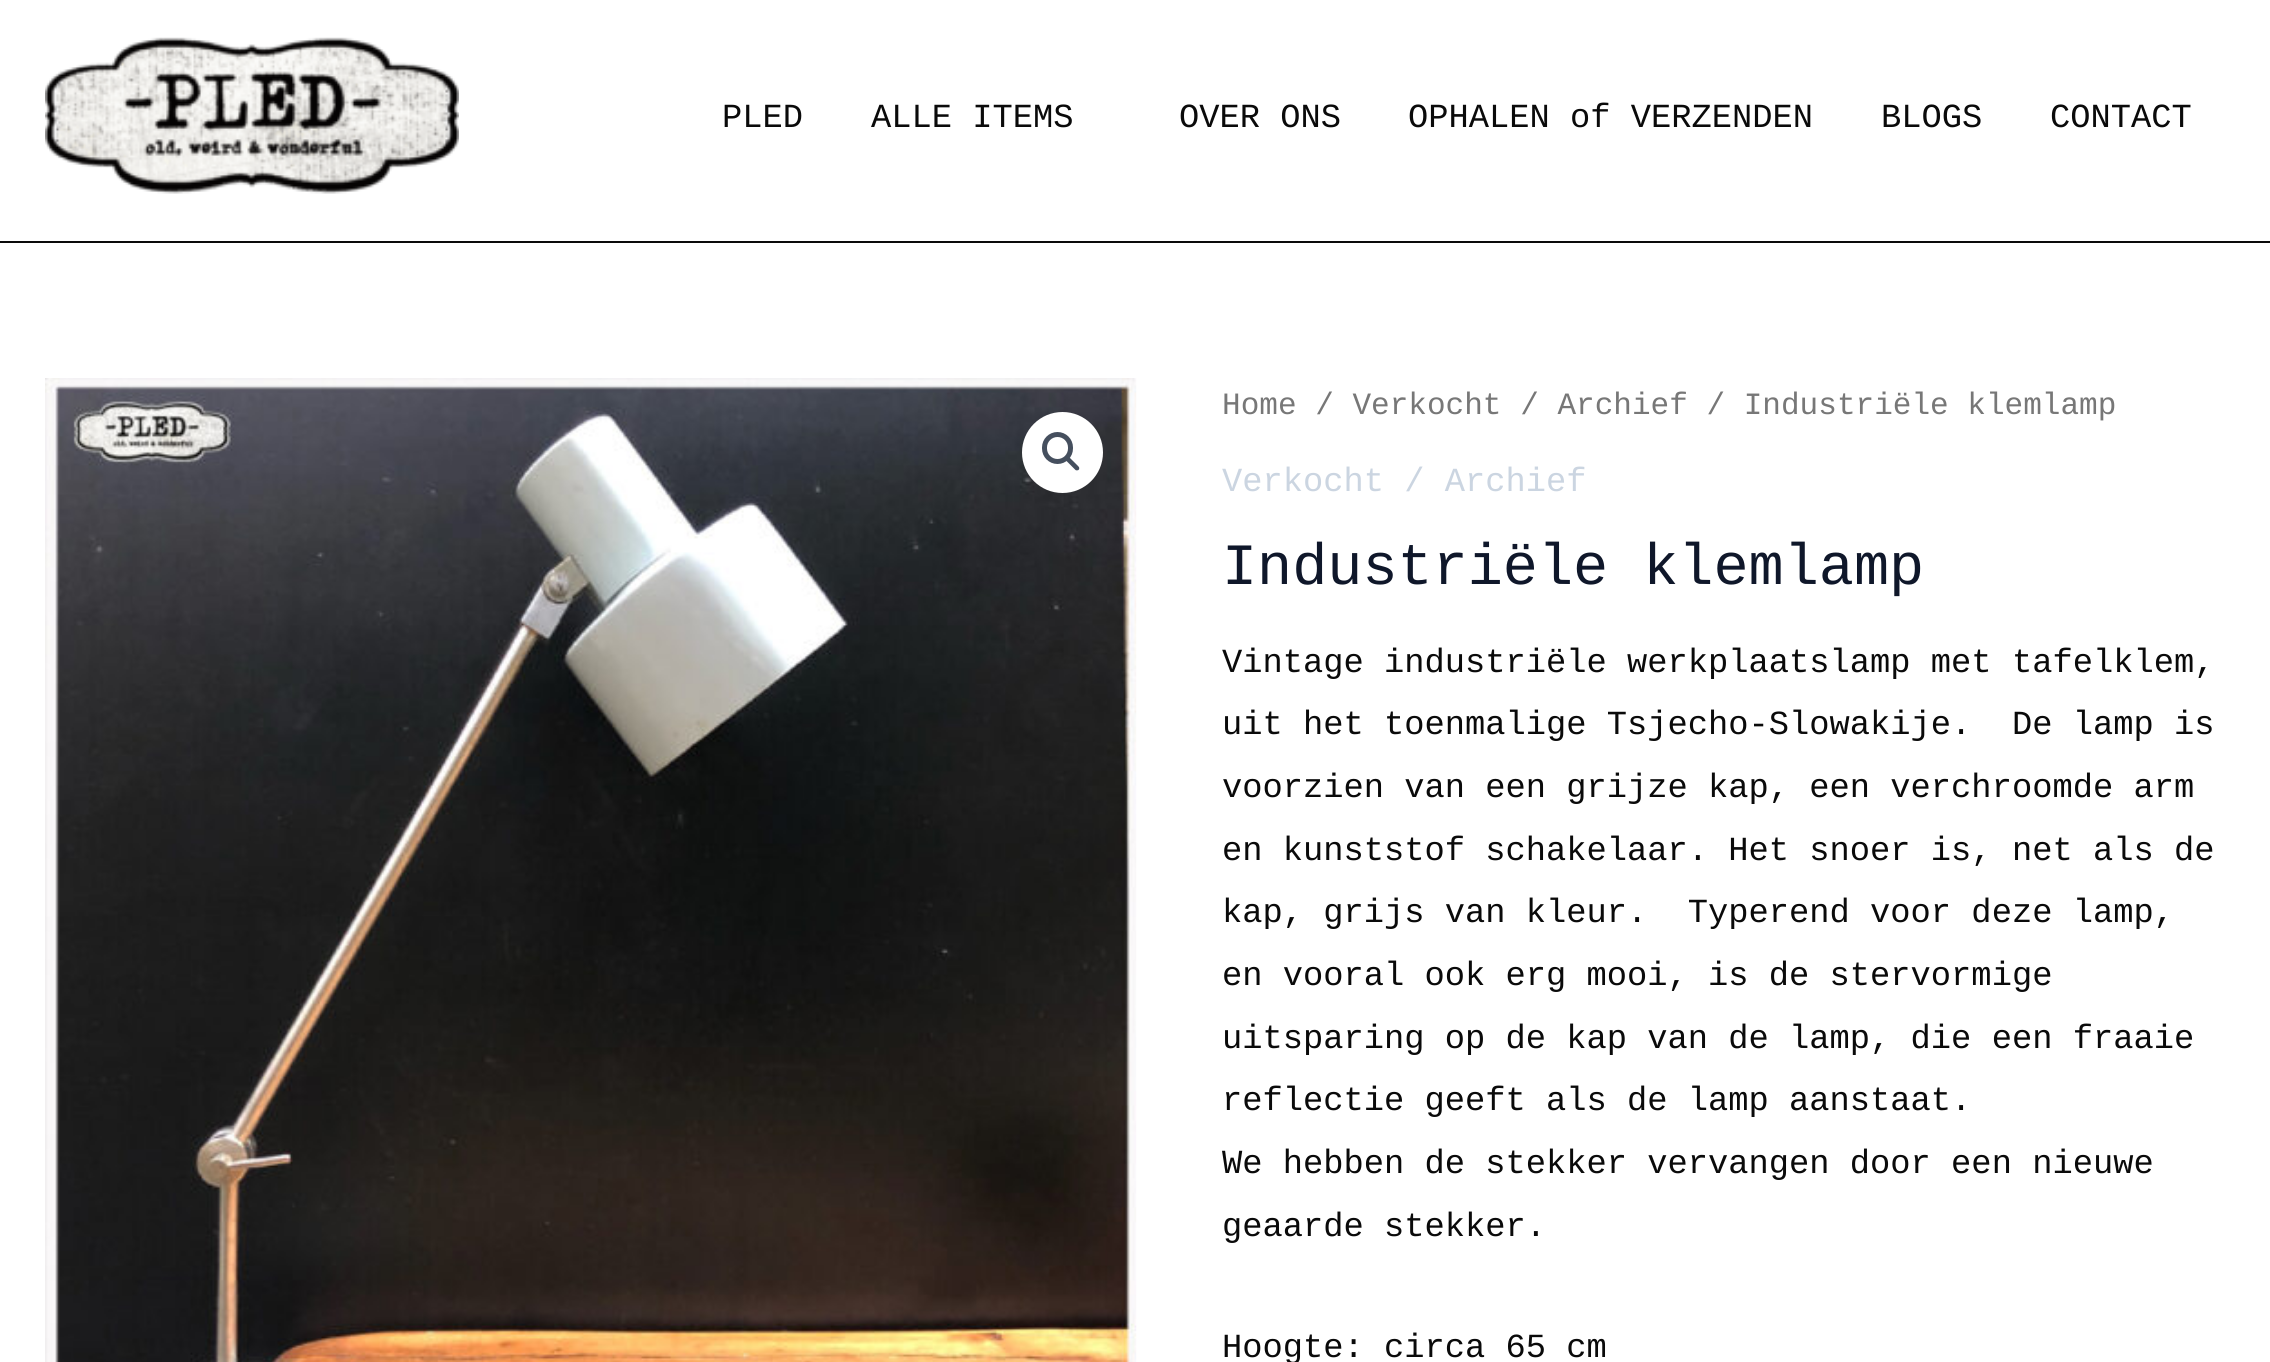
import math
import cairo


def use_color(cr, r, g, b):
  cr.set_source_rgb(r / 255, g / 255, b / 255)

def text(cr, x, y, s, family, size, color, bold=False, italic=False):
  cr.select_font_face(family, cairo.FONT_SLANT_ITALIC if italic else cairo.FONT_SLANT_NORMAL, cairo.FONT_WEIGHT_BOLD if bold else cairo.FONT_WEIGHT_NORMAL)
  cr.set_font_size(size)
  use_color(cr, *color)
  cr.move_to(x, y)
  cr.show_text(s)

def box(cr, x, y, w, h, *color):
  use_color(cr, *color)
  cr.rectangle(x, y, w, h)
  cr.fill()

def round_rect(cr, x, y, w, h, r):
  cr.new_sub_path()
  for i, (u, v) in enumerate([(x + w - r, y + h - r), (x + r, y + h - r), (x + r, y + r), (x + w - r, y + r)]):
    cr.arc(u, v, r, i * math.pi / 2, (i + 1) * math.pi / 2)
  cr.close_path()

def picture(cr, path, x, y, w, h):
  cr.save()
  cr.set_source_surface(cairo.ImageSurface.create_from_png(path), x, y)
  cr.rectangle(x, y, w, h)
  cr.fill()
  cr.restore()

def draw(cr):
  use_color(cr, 255, 255, 255)
  cr.paint()
  box(cr, 0, 241, 2270, 2, 10, 10, 10)
  picture(cr, "img_01.png", 45, 37, 414, 157)
  picture(cr, "img_02.png", 45, 378, 1092, 984)
  use_color(cr, 255, 255, 255)
  cr.arc(1062.5, 452.5, 40.5, 0, 2 * math.pi)
  cr.fill()
  round_rect(cr, 1044.5, 434.5, 26, 27, 13)
  use_color(cr, 69, 79, 94)
  cr.set_line_width(5)
  cr.stroke()
  cr.new_path()
  cr.move_to(1066, 457)
  cr.curve_to(1066.5, 456.5, 1068, 456.5, 1069, 457)
  cr.line_to(1078.5, 466.5)
  cr.curve_to(1079.5, 467.5, 1079.5, 469, 1078.5, 470)
  cr.curve_to(1077.5, 470.5, 1076, 470.5, 1075.5, 470)
  cr.line_to(1066, 460.5)
  cr.curve_to(1065, 459.5, 1065, 458, 1066, 457)
  cr.close_path()
  cr.fill()
  text(cr, 722, 127, "PLED", "Liberation Mono", 33.75, (10, 10, 10))
  text(cr, 871, 127, "ALLE ITEMS", "Liberation Mono", 33.75, (10, 10, 10))
  text(cr, 1179, 127, "OVER ONS", "Liberation Mono", 33.75, (10, 10, 10))
  text(cr, 1408, 127, "OPHALEN of VERZENDEN", "Liberation Mono", 33.75, (10, 10, 10))
  text(cr, 1881, 127, "BLOGS", "Liberation Mono", 33.75, (10, 10, 10))
  text(cr, 2050, 127, "CONTACT", "Liberation Mono", 33.75, (10, 10, 10))
  text(cr, 1222, 414, "Home / Verkocht / Archief / Industriële klemlamp", "Liberation Mono", 31.05, (119, 119, 119))
  text(cr, 1222, 491, "Verkocht / Archief", "Liberation Mono", 33.75, (203, 213, 225))
  text(cr, 1222, 584, "Industriële klemlamp", "Liberation Mono", 58.5, (15, 23, 42))
  text(cr, 1222, 672, "Vintage industriële werkplaatslamp met tafelklem,", "Liberation Mono", 33.75, (10, 10, 10))
  text(cr, 1222, 734, "uit het toenmalige Tsjecho-Slowakije.  De lamp is", "Liberation Mono", 33.75, (10, 10, 10))
  text(cr, 1222, 797, "voorzien van een grijze kap, een verchroomde arm", "Liberation Mono", 33.75, (10, 10, 10))
  text(cr, 1222, 860, "en kunststof schakelaar. Het snoer is, net als de", "Liberation Mono", 33.75, (10, 10, 10))
  text(cr, 1222, 922, "kap, grijs van kleur.  Typerend voor deze lamp,", "Liberation Mono", 33.75, (10, 10, 10))
  text(cr, 1222, 985, "en vooral ook erg mooi, is de stervormige", "Liberation Mono", 33.75, (10, 10, 10))
  text(cr, 1222, 1048, "uitsparing op de kap van de lamp, die een fraaie", "Liberation Mono", 33.75, (10, 10, 10))
  text(cr, 1222, 1110, "reflectie geeft als de lamp aanstaat.", "Liberation Mono", 33.75, (10, 10, 10))
  text(cr, 1222, 1173, "We hebben de stekker vervangen door een nieuwe", "Liberation Mono", 33.75, (10, 10, 10))
  text(cr, 1222, 1236, "geaarde stekker.", "Liberation Mono", 33.75, (10, 10, 10))
  text(cr, 1222, 1357, "Hoogte: circa 65 cm", "Liberation Mono", 33.75, (10, 10, 10))


surface = cairo.ImageSurface(cairo.FORMAT_RGB24, 2270, 1362)
cr = cairo.Context(surface)
options = cairo.FontOptions()
options.set_hint_metrics(cairo.HINT_METRICS_OFF)
options.set_hint_style(cairo.HINT_STYLE_NONE)
cr.set_font_options(options)
cr.set_miter_limit(4)
draw(cr)
surface.write_to_png("out.png")
